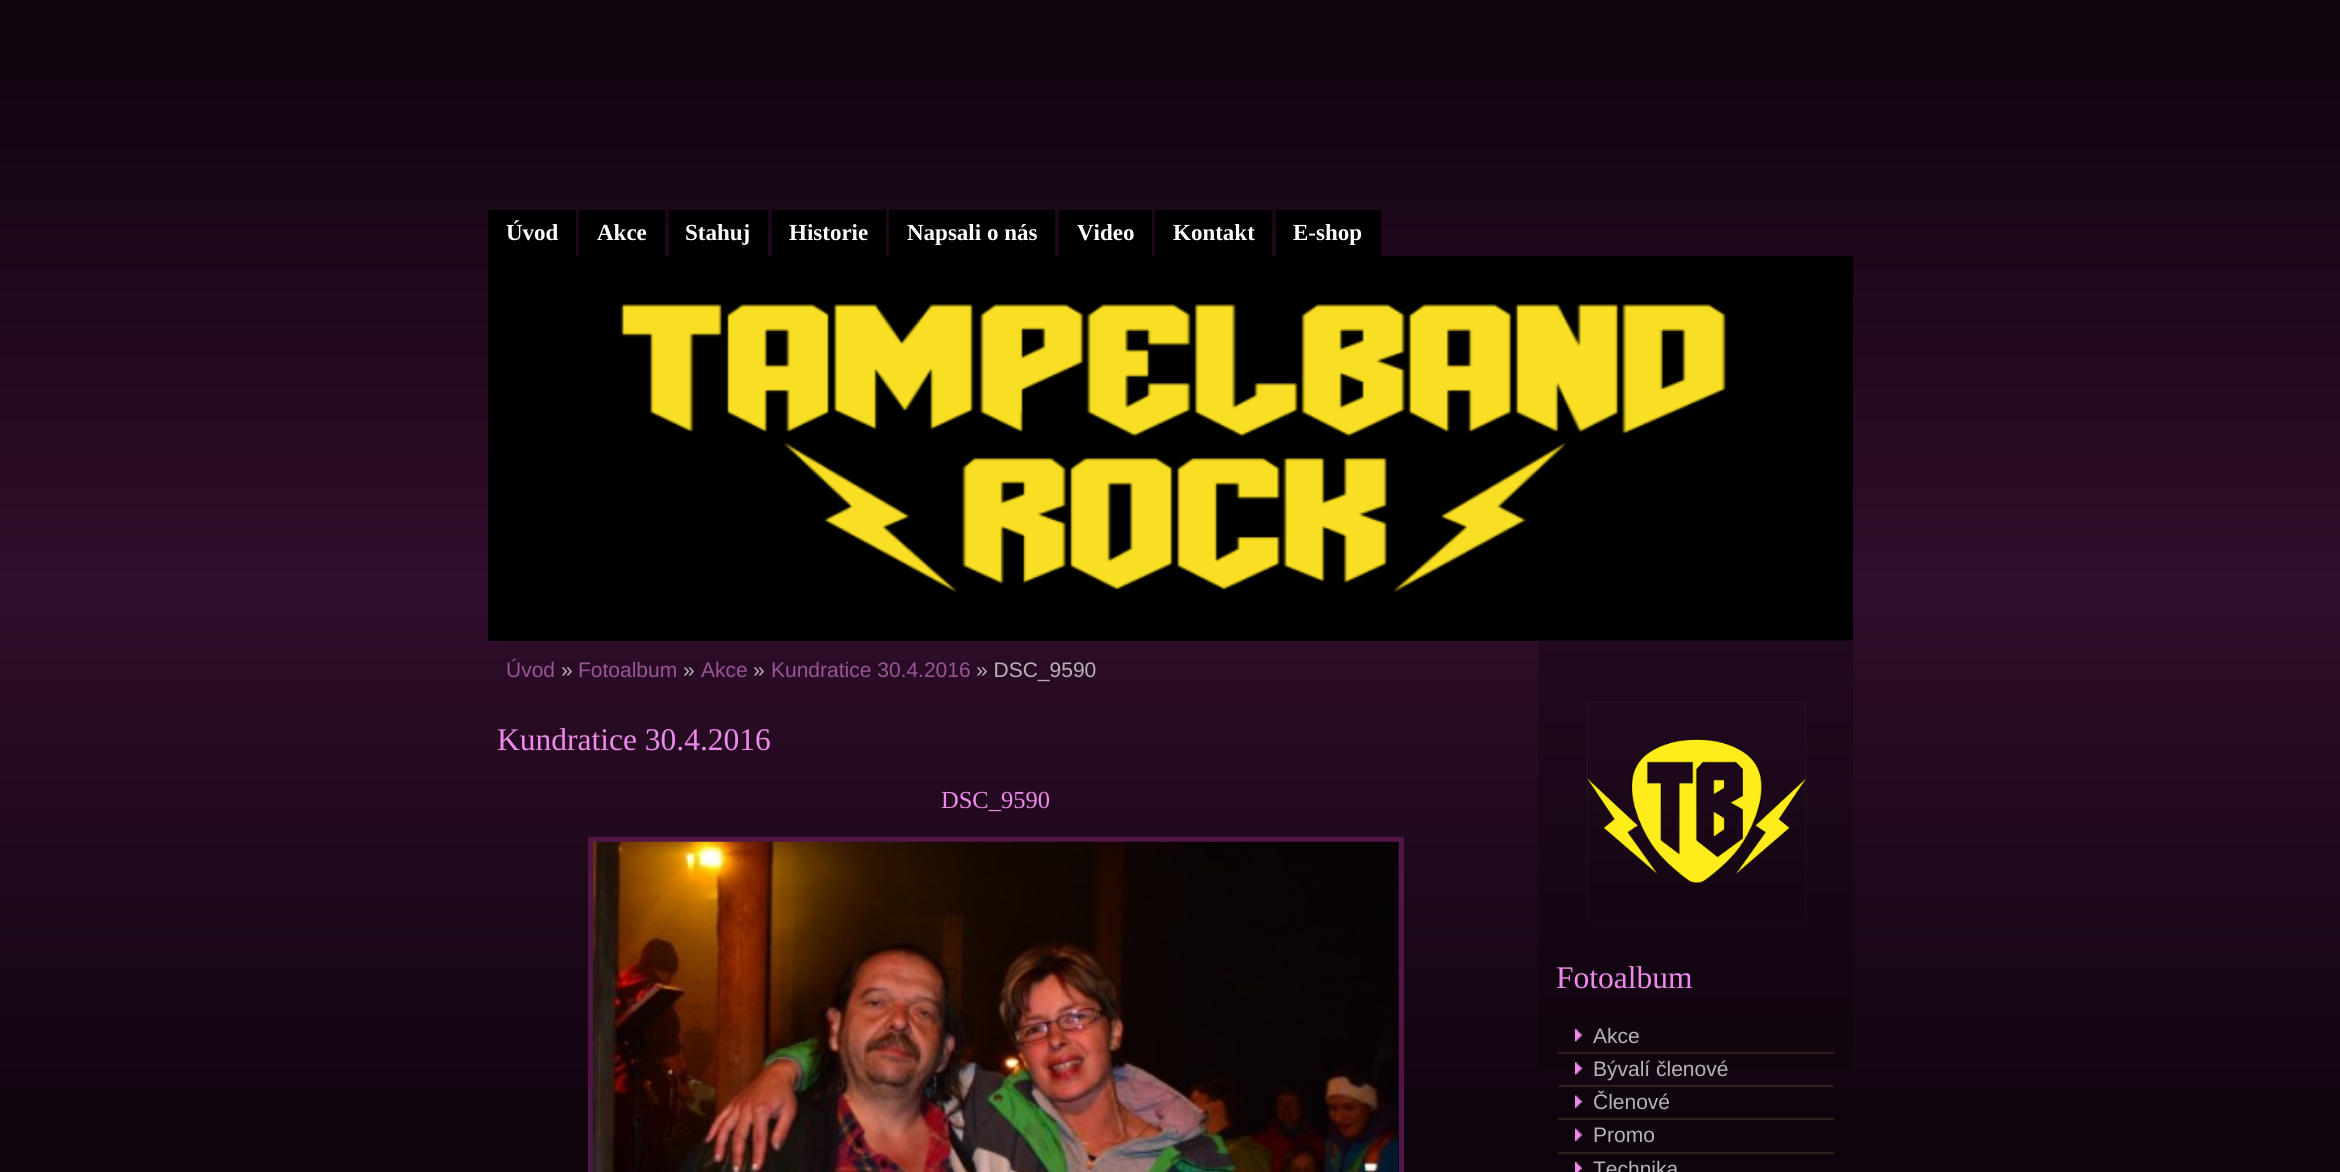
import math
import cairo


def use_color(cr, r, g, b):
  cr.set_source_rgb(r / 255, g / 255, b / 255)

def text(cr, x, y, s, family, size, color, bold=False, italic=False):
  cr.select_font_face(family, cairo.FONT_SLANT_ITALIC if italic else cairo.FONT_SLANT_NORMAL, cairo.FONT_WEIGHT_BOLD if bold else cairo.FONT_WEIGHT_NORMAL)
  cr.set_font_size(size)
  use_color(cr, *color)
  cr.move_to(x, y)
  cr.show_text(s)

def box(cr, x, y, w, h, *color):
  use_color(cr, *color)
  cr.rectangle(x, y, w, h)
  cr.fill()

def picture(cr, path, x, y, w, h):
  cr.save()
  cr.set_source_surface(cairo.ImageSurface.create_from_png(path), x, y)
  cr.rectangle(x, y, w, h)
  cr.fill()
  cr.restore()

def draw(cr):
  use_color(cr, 14, 4, 13)
  cr.paint()
  picture(cr, "img_01.png", 0, 80, 2340, 1008)
  box(cr, 488, 210, 88, 46, 0, 0, 0)
  box(cr, 579, 210, 86, 46, 0, 0, 0)
  box(cr, 669, 210, 99, 46, 0, 0, 0)
  box(cr, 772, 210, 114, 46, 0, 0, 0)
  box(cr, 889, 210, 166, 46, 0, 0, 0)
  box(cr, 1059, 210, 93, 46, 0, 0, 0)
  box(cr, 1155, 210, 117, 46, 0, 0, 0)
  box(cr, 1276, 210, 105, 46, 0, 0, 0)
  box(cr, 488, 256, 1365, 385, 0, 0, 0)
  picture(cr, "img_02.png", 621, 304, 1105, 288)
  cr.rectangle(590.5, 839.5, 811, 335)
  use_color(cr, 81, 22, 72)
  cr.set_line_width(5)
  cr.stroke()
  picture(cr, "img_03.png", 593, 841, 806, 331)
  picture(cr, "img_04.png", 1538, 640, 315, 428)
  picture(cr, "img_05.png", 1587, 701, 219, 220)
  picture(cr, "img_06.png", 1575, 1029, 7, 13)
  box(cr, 1558, 1052, 276, 2, 44, 32, 26)
  picture(cr, "img_07.png", 1575, 1062, 7, 13)
  box(cr, 1558, 1085, 276, 2, 44, 32, 26)
  picture(cr, "img_08.png", 1575, 1095, 7, 13)
  box(cr, 1558, 1118, 276, 2, 44, 32, 26)
  picture(cr, "img_09.png", 1575, 1128, 7, 13)
  box(cr, 1558, 1152, 276, 2, 44, 32, 26)
  picture(cr, "img_10.png", 1575, 1162, 7, 10)
  text(cr, 506, 240, "Úvod", "Liberation Serif", 23, (255, 255, 255), bold=True)
  text(cr, 597, 240, "Akce", "Liberation Serif", 23, (255, 255, 255), bold=True)
  text(cr, 685, 240, "Stahuj", "Liberation Serif", 23, (255, 255, 255), bold=True)
  text(cr, 789, 240, "Historie", "Liberation Serif", 23, (255, 255, 255), bold=True)
  text(cr, 907, 240, "Napsali o nás", "Liberation Serif", 23, (255, 255, 255), bold=True)
  text(cr, 1077, 240, "Video", "Liberation Serif", 23, (255, 255, 255), bold=True)
  text(cr, 1173, 240, "Kontakt", "Liberation Serif", 23, (255, 255, 255), bold=True)
  text(cr, 1293, 240, "E-shop", "Liberation Serif", 23, (255, 255, 255), bold=True)
  text(cr, 506, 677, "Úvod", "Liberation Sans", 21, (152, 85, 149))
  text(cr, 561, 677, "»", "Liberation Sans", 21, (183, 180, 183))
  text(cr, 578, 677, "Fotoalbum", "Liberation Sans", 21, (152, 85, 149))
  text(cr, 683, 677, "»", "Liberation Sans", 21, (183, 180, 183))
  text(cr, 701, 677, "Akce", "Liberation Sans", 21, (152, 85, 149))
  text(cr, 753, 677, "»", "Liberation Sans", 21, (183, 180, 183))
  text(cr, 771, 677, "Kundratice 30.4.2016", "Liberation Sans", 21, (152, 85, 149))
  text(cr, 976, 677, "» DSC_9590", "Liberation Sans", 21, (183, 180, 183))
  text(cr, 497, 750, "Kundratice 30.4.2016", "Liberation Serif", 31.5, (238, 138, 235))
  text(cr, 941, 808, "DSC_9590", "Liberation Serif", 24.5, (238, 138, 235))
  text(cr, 1556, 988, "Fotoalbum", "Liberation Serif", 31.5, (238, 138, 235))
  text(cr, 1593, 1043, "Akce", "Liberation Sans", 21, (183, 180, 183))
  text(cr, 1593, 1076, "Bývalí členové", "Liberation Sans", 21, (183, 180, 183))
  text(cr, 1593, 1109, "Členové", "Liberation Sans", 21, (183, 180, 183))
  text(cr, 1593, 1142, "Promo", "Liberation Sans", 21, (183, 180, 183))
  text(cr, 1593, 1176, "Technika", "Liberation Sans", 21, (183, 180, 183))


surface = cairo.ImageSurface(cairo.FORMAT_RGB24, 2340, 1172)
cr = cairo.Context(surface)
options = cairo.FontOptions()
options.set_hint_metrics(cairo.HINT_METRICS_OFF)
options.set_hint_style(cairo.HINT_STYLE_NONE)
cr.set_font_options(options)
cr.set_miter_limit(4)
draw(cr)
surface.write_to_png("out.png")
